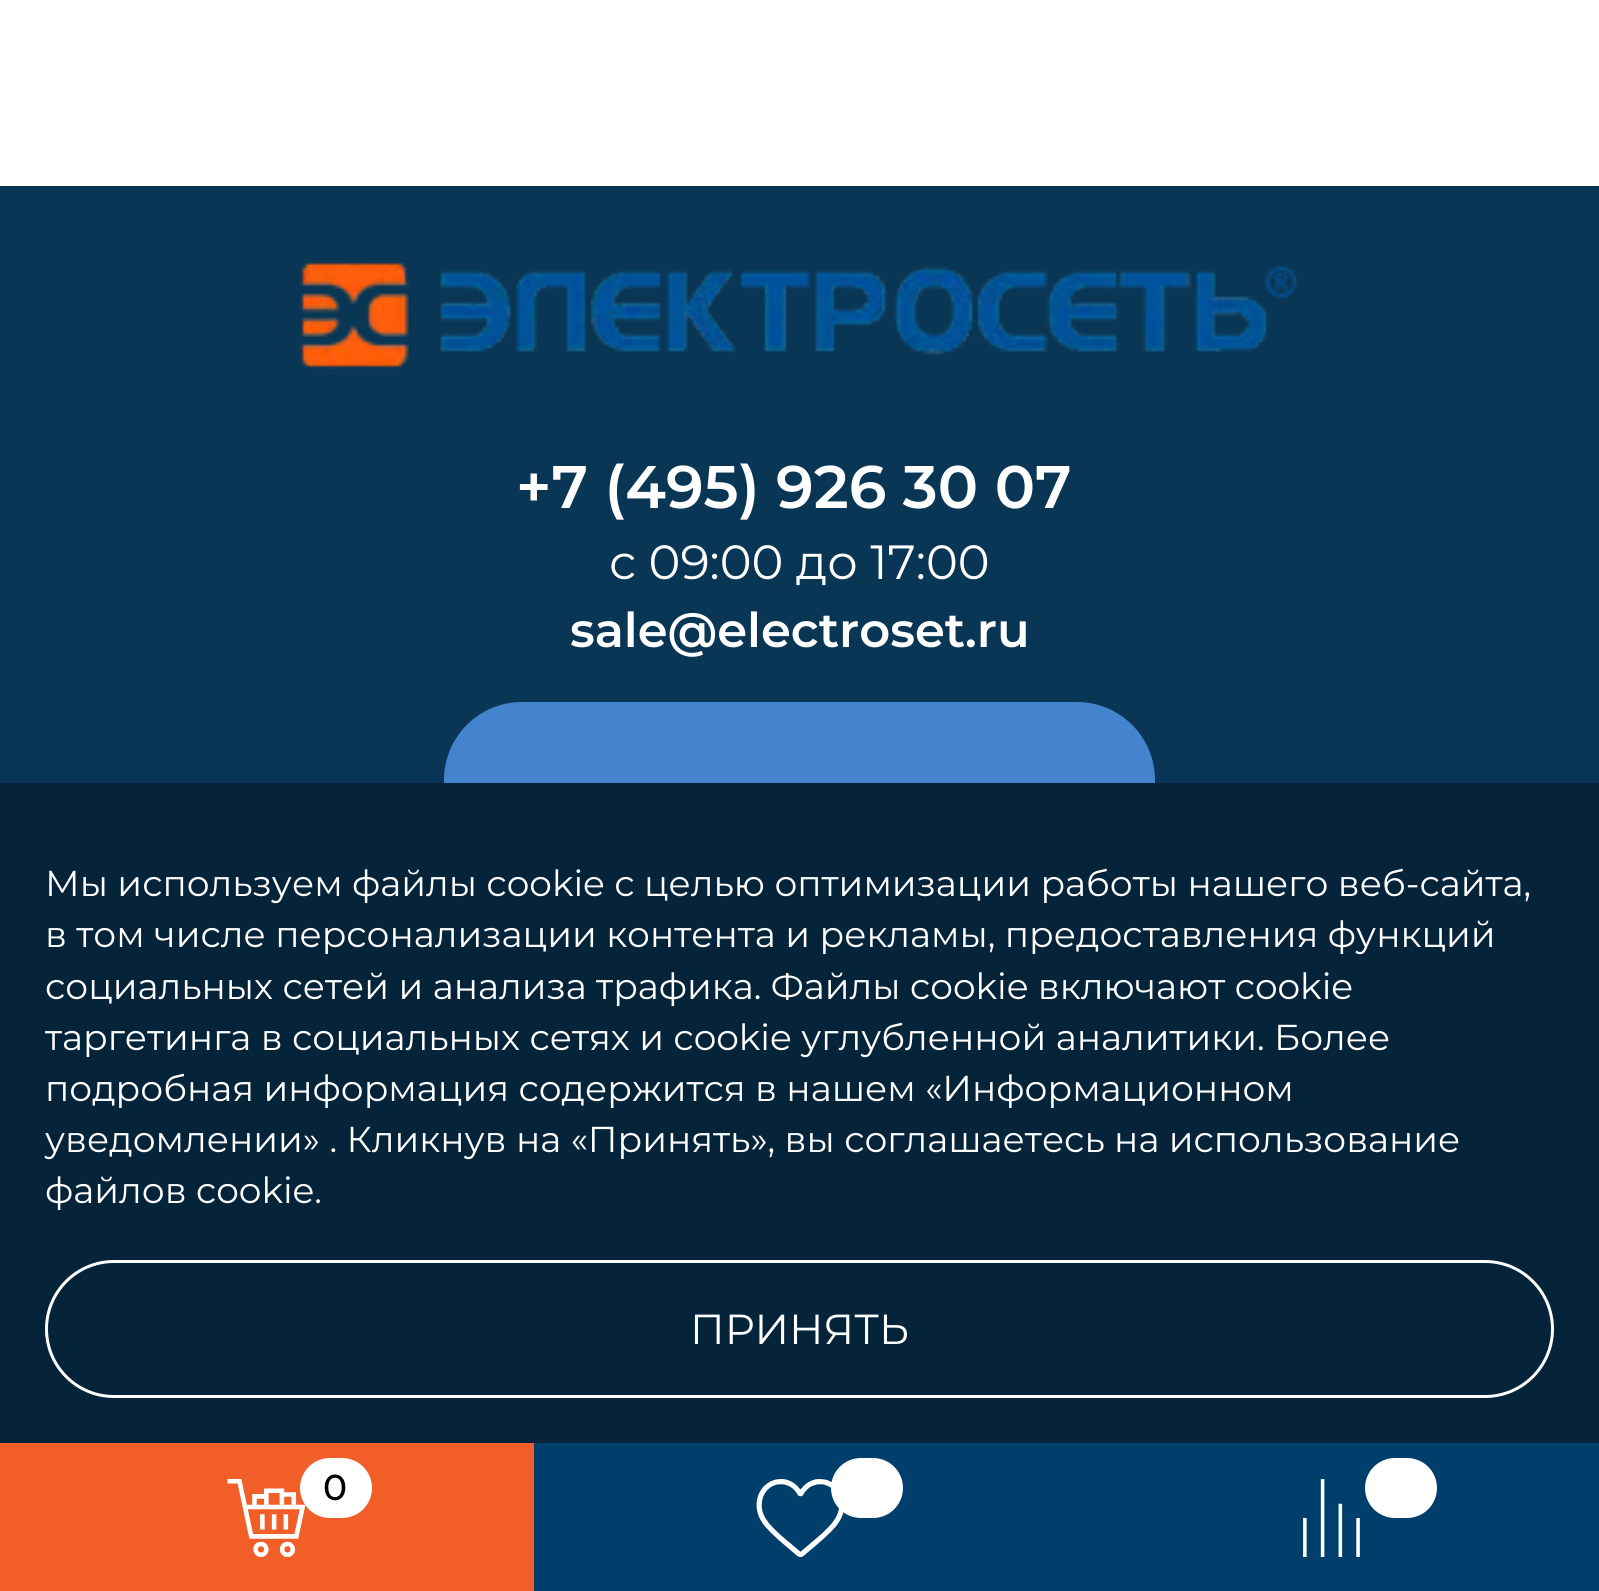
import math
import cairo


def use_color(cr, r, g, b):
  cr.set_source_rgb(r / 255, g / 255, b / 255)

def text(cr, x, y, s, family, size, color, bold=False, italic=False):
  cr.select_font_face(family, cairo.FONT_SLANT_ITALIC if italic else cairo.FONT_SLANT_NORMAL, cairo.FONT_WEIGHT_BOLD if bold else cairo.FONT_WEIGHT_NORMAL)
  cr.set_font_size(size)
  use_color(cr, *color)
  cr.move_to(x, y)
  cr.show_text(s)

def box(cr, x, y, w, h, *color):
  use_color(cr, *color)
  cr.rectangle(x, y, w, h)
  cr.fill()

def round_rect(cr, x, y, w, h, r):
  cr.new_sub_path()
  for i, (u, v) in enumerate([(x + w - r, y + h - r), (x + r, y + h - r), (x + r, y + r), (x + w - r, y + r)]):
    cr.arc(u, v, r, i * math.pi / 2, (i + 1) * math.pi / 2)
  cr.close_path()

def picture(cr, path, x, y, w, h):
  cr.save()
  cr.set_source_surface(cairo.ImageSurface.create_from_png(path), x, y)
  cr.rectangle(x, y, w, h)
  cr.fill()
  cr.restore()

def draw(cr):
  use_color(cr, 255, 255, 255)
  cr.paint()
  box(cr, 0, 186, 1599, 597, 10, 54, 85)
  picture(cr, "img_01.png", 300, 261, 997, 108)
  use_color(cr, 68, 131, 206)
  round_rect(cr, 445.5, 703.5, 708, 153, 76.5)
  cr.fill_preserve()
  cr.set_line_width(3)
  cr.stroke()
  box(cr, 534, 1443, 1065, 148, 0, 62, 107)
  picture(cr, "img_02.png", 756, 1479, 88, 78)
  use_color(cr, 255, 255, 255)
  round_rect(cr, 834, 1461, 66, 54, 27)
  cr.fill_preserve()
  cr.set_line_width(6)
  cr.stroke()
  box(cr, 0, 1443, 534, 148, 241, 94, 39)
  picture(cr, "img_03.png", 227, 1479, 79, 78)
  use_color(cr, 255, 255, 255)
  round_rect(cr, 303, 1461, 66, 54, 27)
  cr.fill_preserve()
  cr.stroke()
  picture(cr, "img_04.png", 1303, 1479, 57, 78)
  round_rect(cr, 1368, 1461, 66, 54, 27)
  cr.fill_preserve()
  cr.stroke()
  box(cr, 0, 783, 1599, 660, 5, 36, 58)
  round_rect(cr, 46.5, 1261.5, 1506, 135, 67.5)
  use_color(cr, 255, 255, 255)
  cr.set_line_width(3)
  cr.stroke()
  text(cr, 516, 508, "+7 (495) 926 30 07", "Montserrat SemiBold", 60, (255, 255, 255))
  text(cr, 609, 579, "с 09:00 до 17:00", "Montserrat", 48, (255, 255, 255))
  text(cr, 570, 647, "sale@electroset.ru", "Montserrat SemiBold", 48, (255, 255, 255))
  text(cr, 323, 1500, "0", "Montserrat Medium", 36, (0, 0, 0))
  text(cr, 45, 896, "Мы используем файлы cookie с целью оптимизации работы нашего веб-сайта,", "Montserrat", 36, (255, 255, 255))
  text(cr, 45, 947, "в том числе персонализации контента и рекламы, предоставления функций", "Montserrat", 36, (255, 255, 255))
  text(cr, 45, 999, "социальных сетей и анализа трафика. Файлы cookie включают cookie", "Montserrat", 36, (255, 255, 255))
  text(cr, 45, 1050, "таргетинга в социальных сетях и cookie углубленной аналитики. Более", "Montserrat", 36, (255, 255, 255))
  text(cr, 45, 1101, "подробная информация содержится в нашем «Информационном", "Montserrat", 36, (255, 255, 255))
  text(cr, 45, 1152, "уведомлении» . Кликнув на «Принять», вы соглашаетесь на использование", "Montserrat", 36, (255, 255, 255))
  text(cr, 45, 1203, "файлов cookie.", "Montserrat", 36, (255, 255, 255))
  text(cr, 690, 1344, "ПРИНЯТЬ", "Montserrat", 42, (255, 255, 255))


surface = cairo.ImageSurface(cairo.FORMAT_RGB24, 1599, 1591)
cr = cairo.Context(surface)
options = cairo.FontOptions()
options.set_hint_metrics(cairo.HINT_METRICS_OFF)
options.set_hint_style(cairo.HINT_STYLE_NONE)
cr.set_font_options(options)
cr.set_miter_limit(4)
draw(cr)
surface.write_to_png("out.png")
